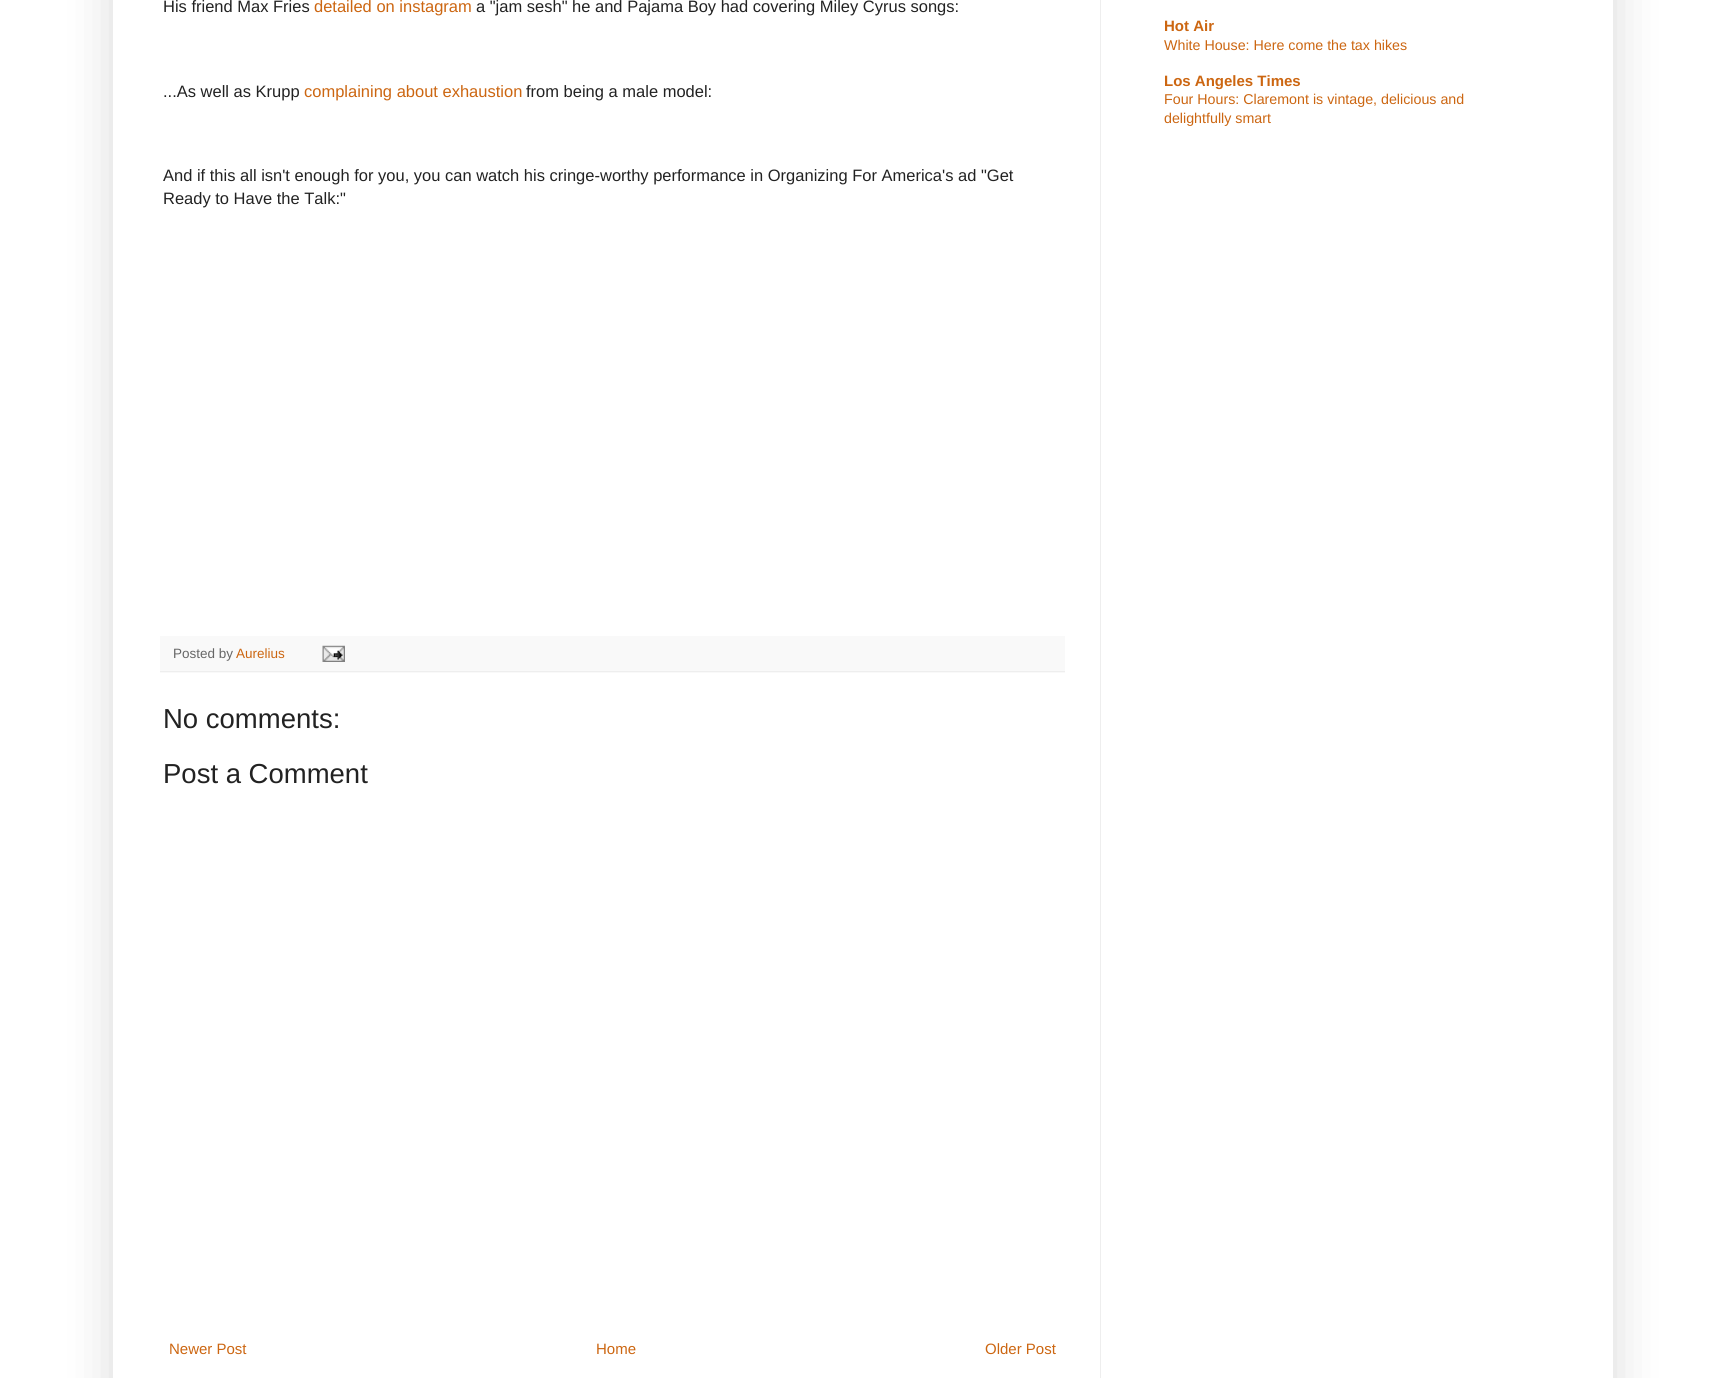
import math
import cairo


def use_color(cr, r, g, b):
  cr.set_source_rgb(r / 255, g / 255, b / 255)

def text(cr, x, y, s, family, size, color, bold=False, italic=False):
  cr.select_font_face(family, cairo.FONT_SLANT_ITALIC if italic else cairo.FONT_SLANT_NORMAL, cairo.FONT_WEIGHT_BOLD if bold else cairo.FONT_WEIGHT_NORMAL)
  cr.set_font_size(size)
  use_color(cr, *color)
  cr.move_to(x, y)
  cr.show_text(s)

def box(cr, x, y, w, h, *color):
  use_color(cr, *color)
  cr.rectangle(x, y, w, h)
  cr.fill()

def round_rect(cr, x, y, w, h, r):
  cr.new_sub_path()
  for i, (u, v) in enumerate([(x + w - r, y + h - r), (x + r, y + h - r), (x + r, y + r), (x + w - r, y + r)]):
    cr.arc(u, v, r, i * math.pi / 2, (i + 1) * math.pi / 2)
  cr.close_path()

def shadow(cr, x, y, w, h, r, blur, alpha):
  cr.push_group_with_content(cairo.CONTENT_ALPHA)
  cr.set_operator(cairo.OPERATOR_SOURCE)
  for i in range(15, -16, -2):
    e = blur * i / 6
    if min(w, h) + 2 * e > 0:
      cr.set_source_rgba(0, 0, 0, alpha * math.erfc((i - 1) / 8.5) / 2)
      round_rect(cr, x - e, y - e, w + 2 * e, h + 2 * e, max(0, min(r + e + blur * .6, min(w, h) / 2 + e)))
      cr.fill()
  cr.mask(cr.pop_group())

def picture(cr, path, x, y, w, h):
  cr.save()
  cr.set_source_surface(cairo.ImageSurface.create_from_png(path), x, y)
  cr.rectangle(x, y, w, h)
  cr.fill()
  cr.restore()

def draw(cr):
  use_color(cr, 255, 255, 255)
  cr.paint()
  use_color(cr, 0, 0, 0)
  shadow(cr, 113, -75, 1500, 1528, 0, 25, 0.15)
  box(cr, 113, 0, 1500, 1378, 255, 255, 255)
  box(cr, 160, 636, 905, 37, 249, 249, 249)
  box(cr, 160, 671, 905, 1, 238, 238, 238)
  picture(cr, "img_01.png", 322, 645, 23, 17)
  box(cr, 1100, 0, 1, 1378, 238, 238, 238)
  text(cr, 163, 12, "His friend Max Fries", "Liberation Sans", 16.5, (34, 34, 34))
  text(cr, 314, 12, "detailed on instagram", "Liberation Sans", 16.5, (204, 102, 17))
  text(cr, 476, 12, "a \"jam sesh\" he and Pajama Boy had covering Miley Cyrus songs:", "Liberation Sans", 16.5, (34, 34, 34))
  text(cr, 163, 97, "...As well as Krupp", "Liberation Sans", 16.5, (34, 34, 34))
  text(cr, 304, 97, "complaining about exhaustion", "Liberation Sans", 16.5, (204, 102, 17))
  text(cr, 526, 97, "from being a male model:", "Liberation Sans", 16.5, (34, 34, 34))
  text(cr, 163, 181, "And if this all isn't enough for you, you can watch his cringe-worthy performance in Organizing For America's ad \"Get", "Liberation Sans", 16.5, (34, 34, 34))
  text(cr, 163, 204, "Ready to Have the Talk:\"", "Liberation Sans", 16.5, (34, 34, 34))
  text(cr, 173, 658, "Posted by", "Liberation Sans", 13.5, (102, 102, 102))
  text(cr, 236, 658, "Aurelius", "Liberation Sans", 13.5, (204, 102, 17))
  text(cr, 163, 728, "No comments:", "Liberation Sans", 27.5, (34, 34, 34))
  text(cr, 163, 783, "Post a Comment", "Liberation Sans", 27.5, (34, 34, 34))
  text(cr, 169, 1354, "Newer Post", "Liberation Sans", 15, (204, 102, 17))
  text(cr, 596, 1354, "Home", "Liberation Sans", 15, (204, 102, 17))
  text(cr, 985, 1354, "Older Post", "Liberation Sans", 15, (204, 102, 17))
  text(cr, 1164, 31, "Hot Air", "Liberation Sans", 15, (204, 102, 17), bold=True)
  text(cr, 1164, 50, "White House: Here come the tax hikes", "Liberation Sans", 14.25, (204, 102, 17))
  text(cr, 1164, 86, "Los Angeles Times", "Liberation Sans", 15, (204, 102, 17), bold=True)
  text(cr, 1164, 104, "Four Hours: Claremont is vintage, delicious and", "Liberation Sans", 14.25, (204, 102, 17))
  text(cr, 1164, 123, "delightfully smart", "Liberation Sans", 14.25, (204, 102, 17))


surface = cairo.ImageSurface(cairo.FORMAT_RGB24, 1725, 1378)
cr = cairo.Context(surface)
options = cairo.FontOptions()
options.set_hint_metrics(cairo.HINT_METRICS_OFF)
options.set_hint_style(cairo.HINT_STYLE_NONE)
cr.set_font_options(options)
cr.set_miter_limit(4)
draw(cr)
surface.write_to_png("out.png")
